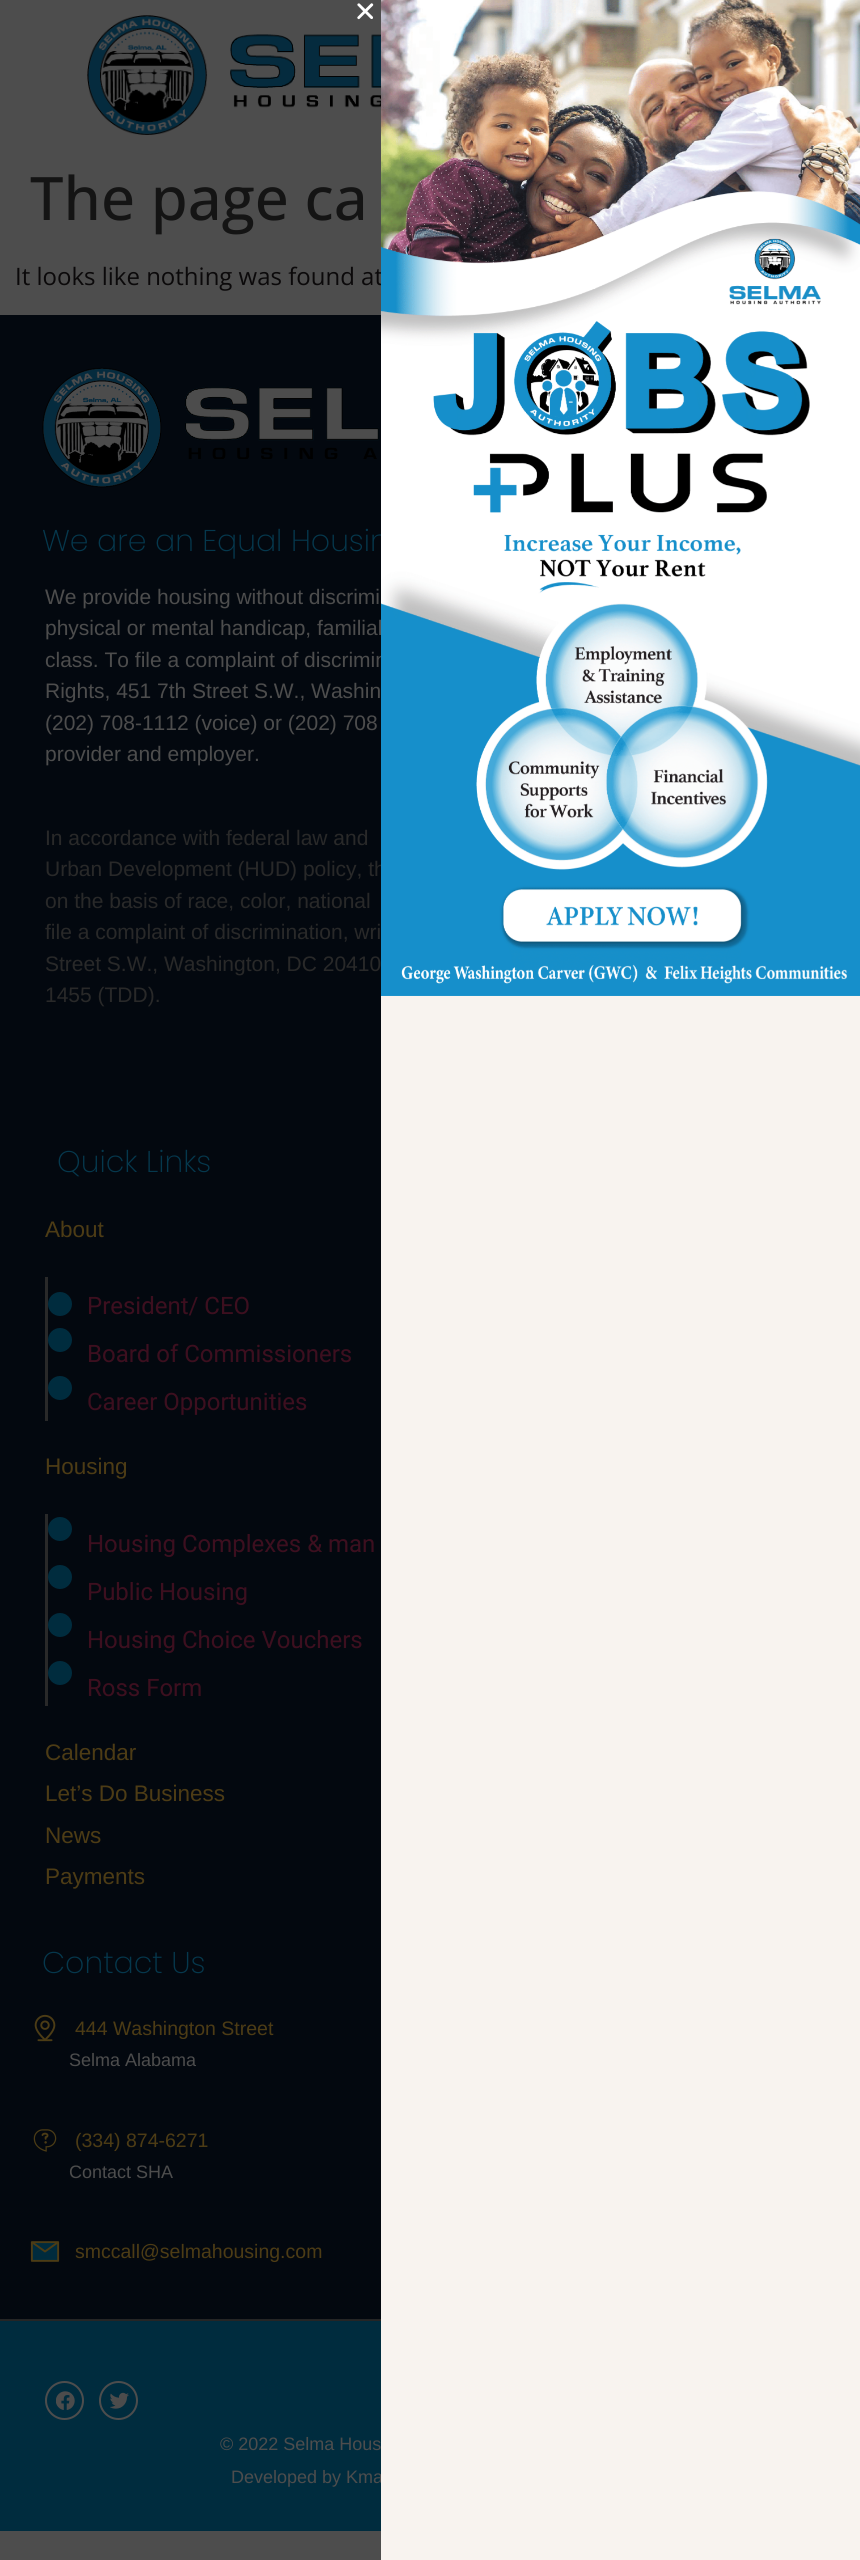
import math
import cairo


def use_color(cr, r, g, b):
  cr.set_source_rgb(r / 255, g / 255, b / 255)

def text(cr, x, y, s, family, size, color, bold=False, italic=False):
  cr.select_font_face(family, cairo.FONT_SLANT_ITALIC if italic else cairo.FONT_SLANT_NORMAL, cairo.FONT_WEIGHT_BOLD if bold else cairo.FONT_WEIGHT_NORMAL)
  cr.set_font_size(size)
  use_color(cr, *color)
  cr.move_to(x, y)
  cr.show_text(s)

def box(cr, x, y, w, h, *color):
  use_color(cr, *color)
  cr.rectangle(x, y, w, h)
  cr.fill()

def picture(cr, path, x, y, w, h):
  cr.save()
  cr.set_source_surface(cairo.ImageSurface.create_from_png(path), x, y)
  cr.rectangle(x, y, w, h)
  cr.fill()
  cr.restore()

def draw(cr):
  use_color(cr, 77, 77, 77)
  cr.paint()
  picture(cr, "img_01.png", 87, 15, 294, 120)
  picture(cr, "img_02.png", 357, 3, 17, 17)
  box(cr, 0, 315, 381, 2004, 3, 8, 15)
  picture(cr, "img_04.png", 42, 367, 337, 121)
  box(cr, 45, 1277, 3, 144, 41, 41, 41)
  use_color(cr, 0, 44, 62)
  cr.arc(60, 1304, 12, 0, 2 * math.pi)
  cr.fill()
  cr.arc(60, 1340, 12, 0, 2 * math.pi)
  cr.fill()
  cr.arc(60, 1388, 12, 0, 2 * math.pi)
  cr.fill()
  box(cr, 45, 1514, 3, 192, 41, 41, 41)
  use_color(cr, 0, 44, 62)
  cr.arc(60, 1529, 12, 0, 2 * math.pi)
  cr.fill()
  cr.arc(60, 1577, 12, 0, 2 * math.pi)
  cr.fill()
  cr.arc(60, 1625, 12, 0, 2 * math.pi)
  cr.fill()
  cr.arc(60, 1673, 12, 0, 2 * math.pi)
  cr.fill()
  picture(cr, "img_05.png", 34, 2014, 22, 28)
  picture(cr, "img_06.png", 33, 2129, 24, 23)
  picture(cr, "img_07.png", 30, 2241, 30, 21)
  box(cr, 0, 2321, 381, 210, 0, 44, 62)
  box(cr, 0, 2319, 381, 2, 37, 37, 37)
  cr.arc(64.5, 2400.5, 18.5, 0, 2 * math.pi)
  use_color(cr, 77, 77, 77)
  cr.stroke()
  picture(cr, "img_08.png", 56, 2391, 19, 19)
  cr.arc(118.5, 2400.5, 18.5, 0, 2 * math.pi)
  cr.stroke()
  picture(cr, "img_09.png", 110, 2392, 19, 17)
  text(cr, 30, 220, "The page ca", "Open Sans Medium", 60, (20, 20, 20))
  text(cr, 15, 285, "It looks like nothing was found at", "Open Sans", 24, (11, 9, 10))
  text(cr, 42, 551, "We are an Equal Housin", "Poppins ExtraLight", 30, (5, 56, 77))
  text(cr, 45, 604, "We provide housing without discrimi", "Liberation Sans", 21, (77, 77, 77))
  text(cr, 45, 635, "physical or mental handicap, familial", "Liberation Sans", 21, (77, 77, 77))
  text(cr, 45, 667, "class. To file a complaint of discrimin", "Liberation Sans", 21, (77, 77, 77))
  text(cr, 45, 698, "Rights, 451 7th Street S.W., Washin", "Liberation Sans", 21, (77, 77, 77))
  text(cr, 45, 730, "(202) 708-1112 (voice) or (202) 708", "Liberation Sans", 21, (77, 77, 77))
  text(cr, 45, 761, "provider and employer.", "Liberation Sans", 21, (77, 77, 77))
  text(cr, 45, 845, "In accordance with federal law and", "Liberation Sans", 21, (41, 41, 41))
  text(cr, 45, 876, "Urban Development (HUD) policy, th", "Liberation Sans", 21, (41, 41, 41))
  text(cr, 45, 908, "on the basis of race, color, national", "Liberation Sans", 21, (41, 41, 41))
  text(cr, 45, 939, "file a complaint of discrimination, wri", "Liberation Sans", 21, (41, 41, 41))
  text(cr, 45, 971, "Street S.W., Washington, DC 20410", "Liberation Sans", 21, (41, 41, 41))
  text(cr, 45, 1002, "1455 (TDD).", "Liberation Sans", 21, (41, 41, 41))
  text(cr, 57, 1172, "Quick Links", "Poppins ExtraLight", 30, (5, 56, 77))
  text(cr, 45, 1237, "About", "Liberation Sans", 22.5, (77, 60, 21))
  text(cr, 87, 1314, "President/ CEO", "Roboto", 24, (61, 15, 31))
  text(cr, 87, 1362, "Board of Commissioners", "Roboto", 24, (61, 15, 31))
  text(cr, 87, 1410, "Career Opportunities", "Roboto", 24, (61, 15, 31))
  text(cr, 45, 1474, "Housing", "Liberation Sans", 22.5, (77, 60, 21))
  text(cr, 87, 1552, "Housing Complexes & man", "Roboto", 24, (61, 15, 31))
  text(cr, 87, 1600, "Public Housing", "Roboto", 24, (61, 15, 31))
  text(cr, 87, 1648, "Housing Choice Vouchers", "Roboto", 24, (61, 15, 31))
  text(cr, 87, 1696, "Ross Form", "Roboto", 24, (61, 15, 31))
  text(cr, 45, 1760, "Calendar", "Liberation Sans", 22.5, (77, 60, 21))
  text(cr, 45, 1801, "Let’s Do Business", "Liberation Sans", 22.5, (77, 60, 21))
  text(cr, 45, 1843, "News", "Liberation Sans", 22.5, (77, 60, 21))
  text(cr, 45, 1884, "Payments", "Liberation Sans", 22.5, (77, 60, 21))
  text(cr, 42, 1973, "Contact Us", "Poppins ExtraLight", 30, (5, 56, 77))
  text(cr, 75, 2035, "444 Washington Street", "Liberation Sans", 19.5, (77, 60, 21))
  text(cr, 69, 2066, "Selma Alabama", "Liberation Sans", 18, (77, 77, 77))
  text(cr, 75, 2147, "(334) 874-6271", "Liberation Sans", 19.5, (77, 60, 21))
  text(cr, 69, 2178, "Contact SHA", "Liberation Sans", 18, (77, 77, 77))
  text(cr, 75, 2258, "smccall@selmahousing.com", "Liberation Sans", 19.5, (77, 60, 21))
  text(cr, 220, 2450, "© 2022 Selma Hous", "Liberation Sans", 18, (77, 77, 77))
  text(cr, 231, 2483, "Developed by Kma", "Liberation Sans", 18, (77, 77, 77))
  box(cr, 381, 995, 479, 1565, 248, 243, 239)
  picture(cr, "img_03.png", 381, 0, 479, 996)


surface = cairo.ImageSurface(cairo.FORMAT_RGB24, 860, 2560)
cr = cairo.Context(surface)
options = cairo.FontOptions()
options.set_hint_metrics(cairo.HINT_METRICS_OFF)
options.set_hint_style(cairo.HINT_STYLE_NONE)
cr.set_font_options(options)
cr.set_miter_limit(4)
draw(cr)
surface.write_to_png("out.png")
